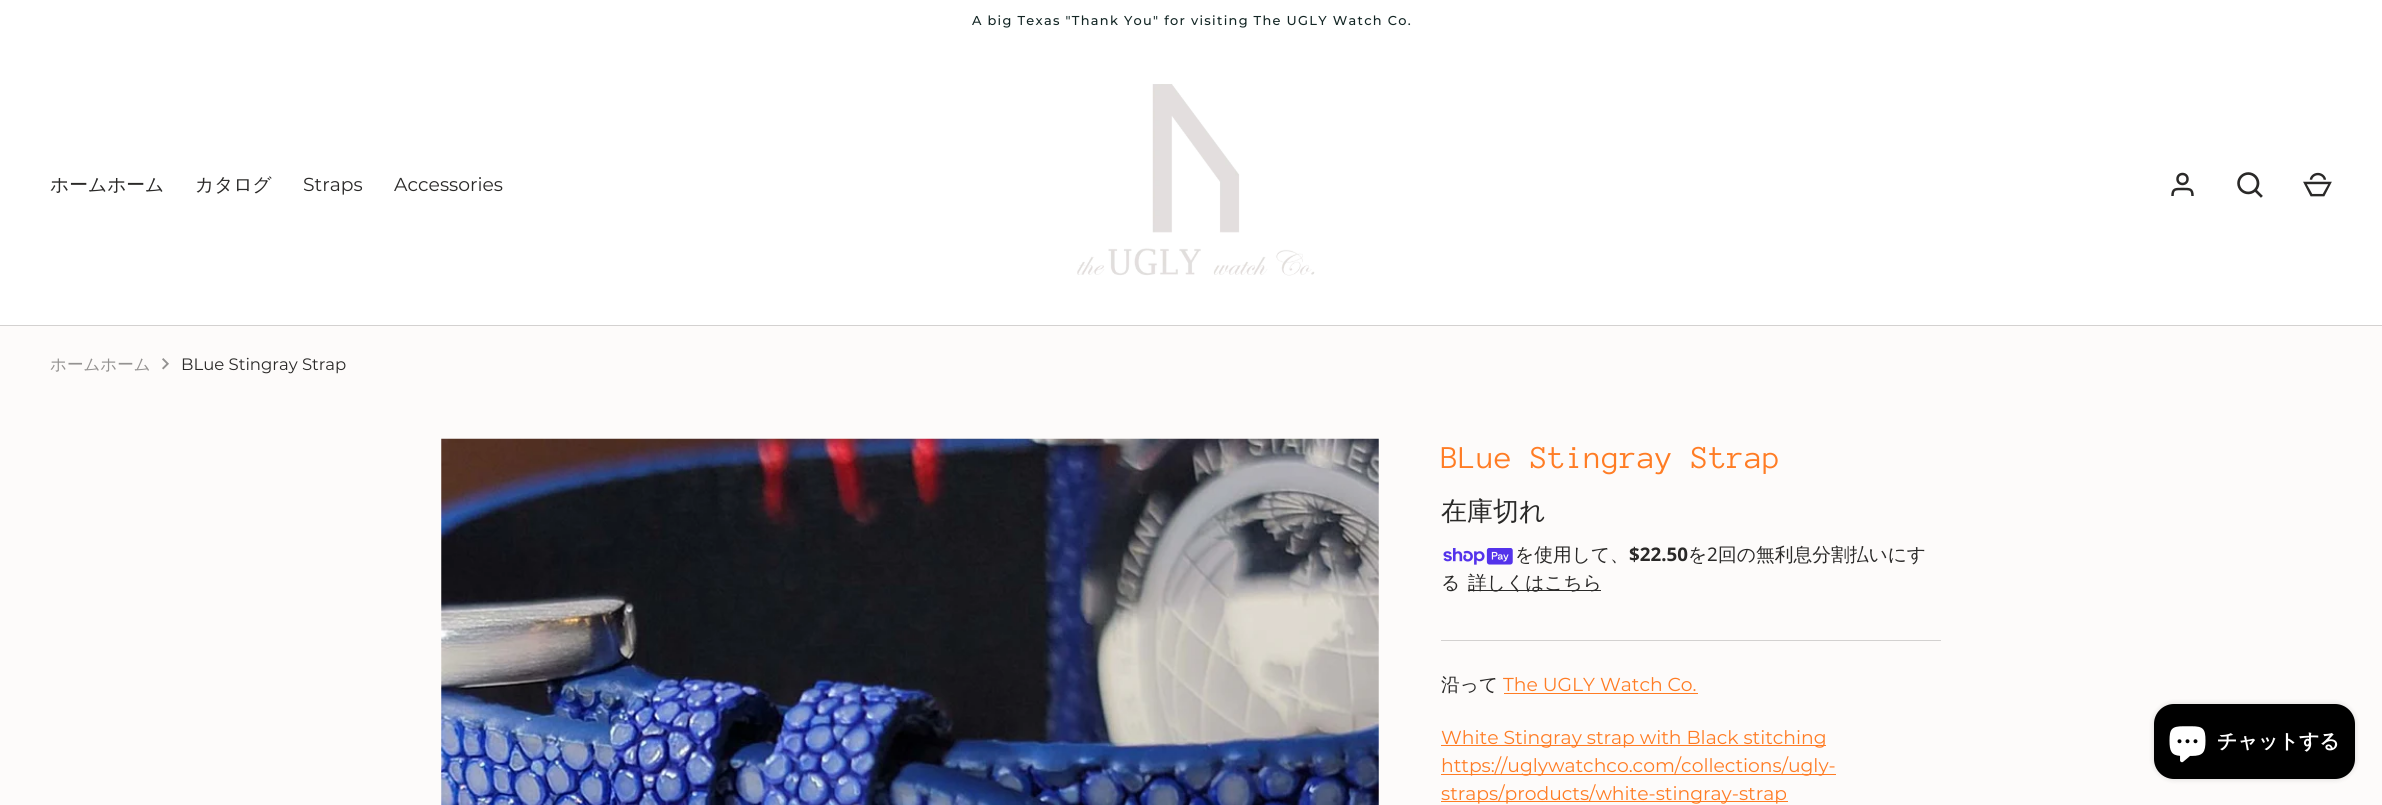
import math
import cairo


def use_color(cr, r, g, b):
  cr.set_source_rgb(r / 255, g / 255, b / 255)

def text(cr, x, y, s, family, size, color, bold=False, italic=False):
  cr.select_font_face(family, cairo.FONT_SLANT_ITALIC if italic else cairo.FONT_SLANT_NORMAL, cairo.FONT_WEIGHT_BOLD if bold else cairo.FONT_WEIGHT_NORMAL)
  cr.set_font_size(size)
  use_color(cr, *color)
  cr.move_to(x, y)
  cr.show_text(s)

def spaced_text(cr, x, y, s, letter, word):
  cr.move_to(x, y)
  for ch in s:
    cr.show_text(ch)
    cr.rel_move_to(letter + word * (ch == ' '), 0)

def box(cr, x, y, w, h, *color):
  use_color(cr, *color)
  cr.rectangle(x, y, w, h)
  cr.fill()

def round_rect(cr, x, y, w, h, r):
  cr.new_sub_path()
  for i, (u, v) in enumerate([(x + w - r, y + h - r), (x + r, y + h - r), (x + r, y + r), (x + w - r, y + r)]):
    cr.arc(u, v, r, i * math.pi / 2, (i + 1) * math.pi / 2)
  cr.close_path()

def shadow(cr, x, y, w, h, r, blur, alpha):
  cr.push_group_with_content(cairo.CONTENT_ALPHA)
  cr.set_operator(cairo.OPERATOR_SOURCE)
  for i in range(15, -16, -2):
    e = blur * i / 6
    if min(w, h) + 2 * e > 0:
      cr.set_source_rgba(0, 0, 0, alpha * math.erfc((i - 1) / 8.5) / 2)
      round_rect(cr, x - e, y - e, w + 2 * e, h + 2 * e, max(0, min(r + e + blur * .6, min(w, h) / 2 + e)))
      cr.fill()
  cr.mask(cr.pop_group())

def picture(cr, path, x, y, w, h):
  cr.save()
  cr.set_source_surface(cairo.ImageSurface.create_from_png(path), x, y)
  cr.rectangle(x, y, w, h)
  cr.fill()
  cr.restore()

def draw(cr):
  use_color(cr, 253, 251, 250)
  cr.paint()
  box(cr, 0, 0, 2382, 325, 255, 255, 255)
  picture(cr, "img_01.png", 1077, 84, 238, 192)
  cr.arc(2182.5, 179, 5, 0, 2 * math.pi)
  use_color(cr, 42, 41, 40)
  cr.set_line_width(2.5)
  cr.stroke()
  cr.new_path()
  cr.move_to(2192.5, 196)
  cr.curve_to(2192.5, 188.5, 2189.5, 189, 2182.5, 189)
  cr.curve_to(2175.5, 189, 2172.5, 188.5, 2172.5, 196)
  cr.stroke()
  picture(cr, "img_02.png", 2237, 172, 26, 26)
  picture(cr, "img_03.png", 2303, 172, 29, 25)
  box(cr, 0, 325, 2382, 1, 211, 209, 208)
  picture(cr, "img_04.png", 162, 358, 7, 12)
  picture(cr, "img_05.png", 441, 438, 938, 367)
  box(cr, 1441, 640, 500, 1, 211, 209, 208)
  picture(cr, "img_06.png", 1443, 548, 70, 17)
  box(cr, 1468, 590, 133, 1, 42, 41, 40)
  box(cr, 1504, 693, 194, 1, 255, 124, 36)
  box(cr, 1441, 745, 385, 1, 255, 124, 36)
  box(cr, 1441, 774, 395, 1, 255, 124, 36)
  box(cr, 1441, 801, 347, 1, 255, 124, 36)
  use_color(cr, 0, 0, 0)
  shadow(cr, 2154, 704, 201, 75, 20, 3, 0.15)
  use_color(cr, 0, 0, 0)
  round_rect(cr, 2154, 704, 201, 75, 20)
  cr.fill()
  picture(cr, "img_07.png", 2169, 726, 37, 37)
  cr.select_font_face("Montserrat Medium")
  cr.set_font_size(12.9)
  use_color(cr, 19, 38, 37)
  spaced_text(cr, 972, 25, "A big Texas \"Thank You\" for visiting The UGLY Watch Co.", 1.3, 0)
  text(cr, 50, 191, "ホームホーム", "WenQuanYi Zen Hei Medium", 18.75, (42, 41, 40))
  text(cr, 195, 191, "カタログ", "WenQuanYi Zen Hei Medium", 18.75, (42, 41, 40))
  text(cr, 303, 191, "Straps", "Montserrat", 18.75, (42, 41, 40))
  text(cr, 394, 191, "Accessories", "Montserrat", 18.75, (42, 41, 40))
  text(cr, 50, 370, "ホームホーム", "WenQuanYi Zen Hei Medium", 16.5, (148, 146, 145))
  text(cr, 181, 370, "BLue Stingray Strap", "Montserrat", 16.5, (42, 41, 40))
  text(cr, 1441, 468, "BLue Stingray Strap", "Anonymous Pro", 32.75, (255, 124, 36))
  text(cr, 1441, 520, "在庫切れ", "WenQuanYi Zen Hei Medium", 26, (42, 41, 40))
  text(cr, 1515, 561, "を使用して、", "WenQuanYi Zen Hei Medium", 18.75, (42, 41, 40))
  text(cr, 1629, 561, "$22.50", "Noto Sans", 18.75, (42, 41, 40), bold=True)
  text(cr, 1688, 561, "を", "WenQuanYi Zen Hei Medium", 18.75, (42, 41, 40))
  text(cr, 1707, 561, "2", "Noto Sans", 18.75, (42, 41, 40))
  text(cr, 1718, 561, "回の無利息分割払いにす", "WenQuanYi Zen Hei Medium", 18.75, (42, 41, 40))
  text(cr, 1441, 589, "る", "WenQuanYi Zen Hei Medium", 18.75, (42, 41, 40))
  text(cr, 1468, 589, "詳しくはこちら", "WenQuanYi Zen Hei Medium", 18.75, (42, 41, 40))
  text(cr, 1441, 691, "沿って", "WenQuanYi Zen Hei Medium", 18.75, (42, 41, 40))
  text(cr, 1503, 691, "The UGLY Watch Co.", "Montserrat", 18.75, (255, 124, 36))
  text(cr, 1441, 744, "White Stingray strap with Black stitching", "Montserrat", 18.75, (255, 124, 36))
  text(cr, 1441, 772, "https://uglywatchco.com/collections/ugly-", "Montserrat", 18.75, (255, 124, 36))
  text(cr, 1441, 800, "straps/products/white-stingray-strap", "Montserrat", 18.75, (255, 124, 36))
  text(cr, 2217, 748, "チャットする", "WenQuanYi Zen Hei", 20, (255, 255, 255), bold=True)


surface = cairo.ImageSurface(cairo.FORMAT_RGB24, 2382, 805)
cr = cairo.Context(surface)
options = cairo.FontOptions()
options.set_hint_metrics(cairo.HINT_METRICS_OFF)
options.set_hint_style(cairo.HINT_STYLE_NONE)
cr.set_font_options(options)
cr.set_miter_limit(4)
draw(cr)
surface.write_to_png("out.png")
